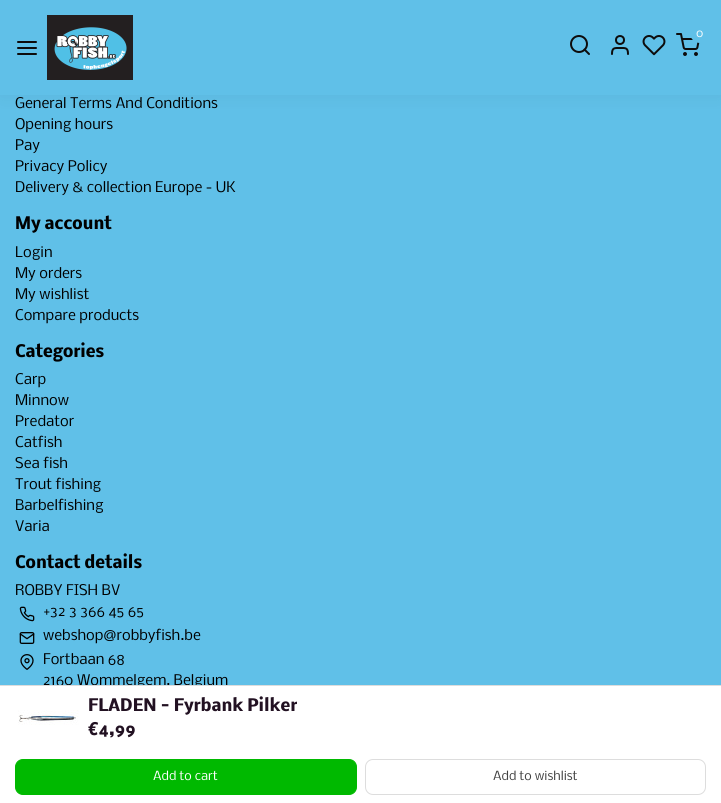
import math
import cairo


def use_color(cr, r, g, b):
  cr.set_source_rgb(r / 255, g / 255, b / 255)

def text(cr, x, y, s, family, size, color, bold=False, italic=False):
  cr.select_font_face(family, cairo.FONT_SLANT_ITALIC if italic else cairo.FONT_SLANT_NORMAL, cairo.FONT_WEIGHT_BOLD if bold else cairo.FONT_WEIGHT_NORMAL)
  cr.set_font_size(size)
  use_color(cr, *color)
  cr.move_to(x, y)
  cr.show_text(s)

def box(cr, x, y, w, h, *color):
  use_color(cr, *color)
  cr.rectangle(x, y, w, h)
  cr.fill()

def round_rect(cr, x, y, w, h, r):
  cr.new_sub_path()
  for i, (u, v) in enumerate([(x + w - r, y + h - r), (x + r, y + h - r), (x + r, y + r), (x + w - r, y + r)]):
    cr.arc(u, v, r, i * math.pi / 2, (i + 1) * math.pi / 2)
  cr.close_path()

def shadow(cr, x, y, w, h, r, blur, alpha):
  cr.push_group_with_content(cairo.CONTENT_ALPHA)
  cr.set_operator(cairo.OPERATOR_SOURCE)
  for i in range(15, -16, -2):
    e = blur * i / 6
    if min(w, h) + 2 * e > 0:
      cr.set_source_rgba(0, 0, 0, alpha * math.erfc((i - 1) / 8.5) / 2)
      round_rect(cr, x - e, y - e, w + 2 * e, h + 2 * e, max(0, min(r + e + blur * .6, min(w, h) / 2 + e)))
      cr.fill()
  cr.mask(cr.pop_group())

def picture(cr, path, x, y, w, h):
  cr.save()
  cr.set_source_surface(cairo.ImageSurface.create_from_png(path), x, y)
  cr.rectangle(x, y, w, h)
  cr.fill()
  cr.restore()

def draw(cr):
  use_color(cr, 96, 192, 232)
  cr.paint()
  use_color(cr, 0, 0, 0)
  shadow(cr, 0, 2, 721, 95, 0, 8, 0.05)
  box(cr, 0, 0, 721, 95, 96, 192, 232)
  cr.new_path()
  cr.move_to(18, 48)
  cr.line_to(36, 48)
  cr.move_to(18, 42)
  cr.line_to(36, 42)
  cr.move_to(18, 54)
  cr.line_to(36, 54)
  use_color(cr, 13, 12, 12)
  cr.set_line_cap(cairo.LINE_CAP_ROUND)
  cr.set_line_join(cairo.LINE_JOIN_ROUND)
  cr.stroke()
  picture(cr, "img_01.png", 47, 15, 86, 65)
  picture(cr, "img_02.png", 676, 33, 24, 23)
  use_color(cr, 96, 192, 232)
  cr.arc(700, 33, 10, 0, 2 * math.pi)
  cr.fill()
  cr.arc(579, 44, 8, 0, 2 * math.pi)
  use_color(cr, 13, 12, 12)
  cr.set_line_cap(cairo.LINE_CAP_BUTT)
  cr.set_line_join(cairo.LINE_JOIN_MITER)
  cr.stroke()
  cr.new_path()
  cr.move_to(589, 54)
  cr.line_to(584.5, 49.5)
  cr.move_to(628, 54)
  cr.curve_to(628, 47.5, 625.5, 48, 620, 48)
  cr.curve_to(614.5, 48, 612, 47.5, 612, 54)
  cr.set_line_cap(cairo.LINE_CAP_ROUND)
  cr.set_line_join(cairo.LINE_JOIN_ROUND)
  cr.stroke()
  cr.arc(620, 40, 4, 0, 2 * math.pi)
  cr.set_line_cap(cairo.LINE_CAP_BUTT)
  cr.set_line_join(cairo.LINE_JOIN_MITER)
  cr.stroke()
  picture(cr, "img_03.png", 642, 35, 24, 21)
  picture(cr, "img_04.png", 19, 606, 16, 16)
  picture(cr, "img_05.png", 19, 632, 16, 12)
  picture(cr, "img_06.png", 20, 654, 14, 16)
  text(cr, 696, 37, "0", "Nobile", 11, (255, 255, 255))
  text(cr, 15, 108, "General Terms And Conditions", "Nobile", 14, (0, 0, 0))
  text(cr, 15, 129, "Opening hours", "Nobile", 14, (0, 0, 0))
  text(cr, 15, 150, "Pay", "Nobile", 14, (0, 0, 0))
  text(cr, 15, 171, "Privacy Policy", "Nobile", 14, (0, 0, 0))
  text(cr, 15, 192, "Delivery & collection Europe - UK", "Nobile", 14, (0, 0, 0))
  text(cr, 15, 229, "My account", "Nobile", 16, (0, 0, 0), bold=True)
  text(cr, 15, 257, "Login", "Nobile", 14, (0, 0, 0))
  text(cr, 15, 278, "My orders", "Nobile", 14, (0, 0, 0))
  text(cr, 15, 299, "My wishlist", "Nobile", 14, (0, 0, 0))
  text(cr, 15, 320, "Compare products", "Nobile", 14, (0, 0, 0))
  text(cr, 15, 357, "Categories", "Nobile", 16, (0, 0, 0), bold=True)
  text(cr, 15, 384, "Carp", "Nobile", 14, (0, 0, 0))
  text(cr, 15, 405, "Minnow", "Nobile", 14, (0, 0, 0))
  text(cr, 15, 426, "Predator", "Nobile", 14, (0, 0, 0))
  text(cr, 15, 447, "Catfish", "Nobile", 14, (0, 0, 0))
  text(cr, 15, 468, "Sea fish", "Nobile", 14, (0, 0, 0))
  text(cr, 15, 489, "Trout fishing", "Nobile", 14, (0, 0, 0))
  text(cr, 15, 510, "Barbelfishing", "Nobile", 14, (0, 0, 0))
  text(cr, 15, 531, "Varia", "Nobile", 14, (0, 0, 0))
  text(cr, 15, 568, "Contact details", "Nobile", 16, (0, 0, 0), bold=True)
  text(cr, 15, 595, "ROBBY FISH BV", "Nobile", 14, (0, 0, 0))
  text(cr, 43, 616, "+32 3 366 45 65", "Nobile", 14, (0, 0, 0))
  text(cr, 43, 640, "webshop@robbyfish.be", "Nobile", 14, (0, 0, 0))
  text(cr, 43, 664, "Fortbaan 68", "Nobile", 14, (0, 0, 0))
  text(cr, 43, 685, "2160 Wommelgem, Belgium", "Nobile", 14, (0, 0, 0))
  box(cr, 0, 686, 721, 117, 255, 255, 255)
  box(cr, 0, 685, 721, 1, 221, 221, 221)
  picture(cr, "img_07.png", 18, 710, 61, 15)
  text(cr, 88, 711, "FLADEN - Fyrbank Pilker", "Nobile", 16, (34, 17, 34), bold=True)
  text(cr, 88, 735, "€4,99", "Nobile", 16, (34, 17, 34), bold=True)
  use_color(cr, 0, 185, 0)
  round_rect(cr, 15.5, 759.5, 341, 35, 7.5)
  cr.fill_preserve()
  cr.set_line_width(1)
  cr.stroke()
  text(cr, 153, 780, "Add to cart", "Nobile", 12, (255, 255, 255))
  round_rect(cr, 365.5, 759.5, 340, 35, 7.5)
  use_color(cr, 221, 221, 221)
  cr.stroke()
  text(cr, 493, 780, "Add to wishlist", "Nobile", 12, (65, 65, 65))


surface = cairo.ImageSurface(cairo.FORMAT_RGB24, 721, 803)
cr = cairo.Context(surface)
options = cairo.FontOptions()
options.set_hint_metrics(cairo.HINT_METRICS_OFF)
options.set_hint_style(cairo.HINT_STYLE_NONE)
cr.set_font_options(options)
cr.set_miter_limit(4)
draw(cr)
surface.write_to_png("out.png")
